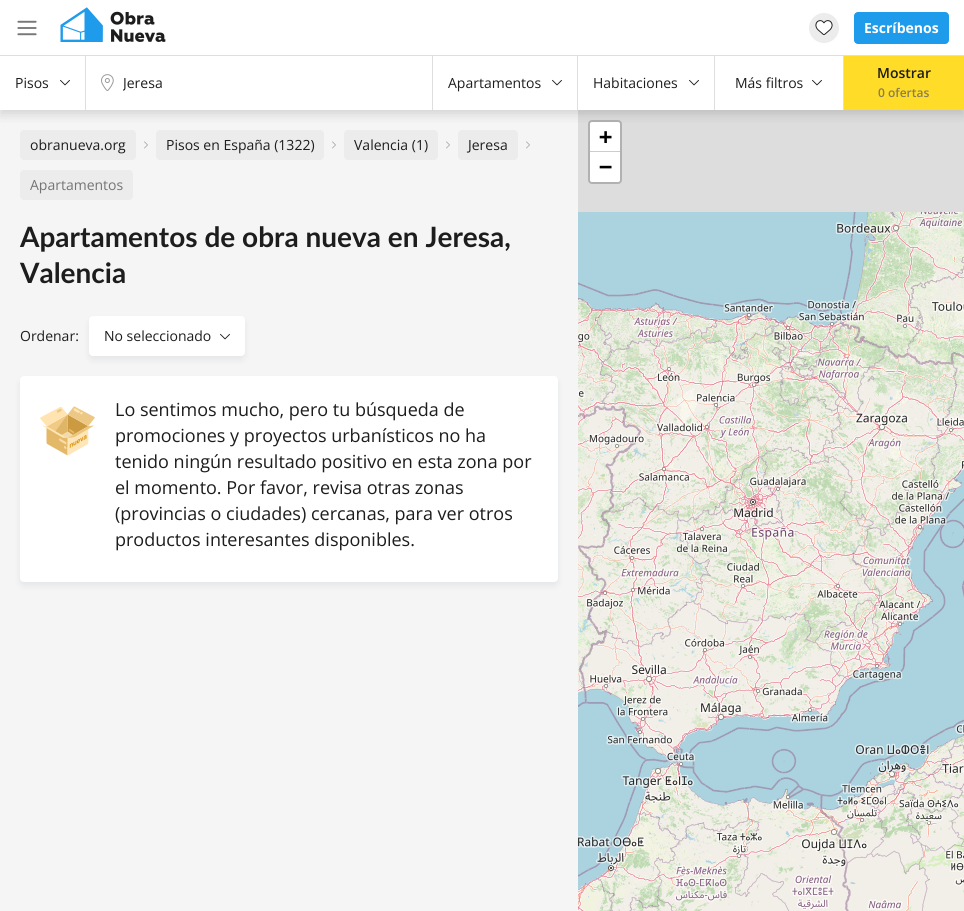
import math
import cairo


def use_color(cr, r, g, b):
  cr.set_source_rgb(r / 255, g / 255, b / 255)

def text(cr, x, y, s, family, size, color, bold=False, italic=False):
  cr.select_font_face(family, cairo.FONT_SLANT_ITALIC if italic else cairo.FONT_SLANT_NORMAL, cairo.FONT_WEIGHT_BOLD if bold else cairo.FONT_WEIGHT_NORMAL)
  cr.set_font_size(size)
  use_color(cr, *color)
  cr.move_to(x, y)
  cr.show_text(s)

def box(cr, x, y, w, h, *color):
  use_color(cr, *color)
  cr.rectangle(x, y, w, h)
  cr.fill()

def round_rect(cr, x, y, w, h, r):
  cr.new_sub_path()
  for i, (u, v) in enumerate([(x + w - r, y + h - r), (x + r, y + h - r), (x + r, y + r), (x + w - r, y + r)]):
    cr.arc(u, v, r, i * math.pi / 2, (i + 1) * math.pi / 2)
  cr.close_path()

def shadow(cr, x, y, w, h, r, blur, alpha):
  cr.push_group_with_content(cairo.CONTENT_ALPHA)
  cr.set_operator(cairo.OPERATOR_SOURCE)
  for i in range(15, -16, -2):
    e = blur * i / 6
    if min(w, h) + 2 * e > 0:
      cr.set_source_rgba(0, 0, 0, alpha * math.erfc((i - 1) / 8.5) / 2)
      round_rect(cr, x - e, y - e, w + 2 * e, h + 2 * e, max(0, min(r + e + blur * .6, min(w, h) / 2 + e)))
      cr.fill()
  cr.mask(cr.pop_group())

def picture(cr, path, x, y, w, h):
  cr.save()
  cr.set_source_surface(cairo.ImageSurface.create_from_png(path), x, y)
  cr.rectangle(x, y, w, h)
  cr.fill()
  cr.restore()

def draw(cr):
  use_color(cr, 245, 245, 245)
  cr.paint()
  use_color(cr, 236, 236, 236)
  round_rect(cr, 20, 130, 116, 30, 4)
  cr.fill()
  round_rect(cr, 156, 130, 168, 30, 4)
  cr.fill()
  round_rect(cr, 344, 130, 94, 30, 4)
  cr.fill()
  round_rect(cr, 458, 130, 60, 30, 4)
  cr.fill()
  box(cr, 578, 110, 386, 102, 221, 221, 221)
  round_rect(cr, 589, 121, 32, 62, 3)
  use_color(cr, 177, 177, 177)
  cr.stroke()
  use_color(cr, 255, 255, 255)
  cr.new_path()
  cr.move_to(592, 122)
  cr.line_to(618, 122)
  cr.curve_to(619, 122, 620, 123, 620, 124)
  cr.line_to(620, 152)
  cr.line_to(590, 152)
  cr.line_to(590, 124)
  cr.curve_to(590, 123, 591, 122, 592, 122)
  cr.close_path()
  cr.fill()
  use_color(cr, 0, 0, 0)
  shadow(cr, 0, 60, 964, 55, 0, 5.5, 0.07)
  shadow(cr, 0, 60, 964, 55, 0, 5.5, 0.07)
  box(cr, 0, 0, 964, 55, 255, 255, 255)
  box(cr, 85, 55, 1, 55, 222, 222, 222)
  box(cr, 432, 55, 1, 55, 222, 222, 222)
  box(cr, 577, 55, 1, 55, 222, 222, 222)
  box(cr, 714, 55, 1, 55, 222, 222, 222)
  box(cr, 843, 55, 1, 55, 222, 222, 222)
  box(cr, 0, 55, 964, 1, 222, 222, 222)
  picture(cr, "img_01.png", 17, 20, 20, 16)
  picture(cr, "img_02.png", 60, 7, 106, 35)
  use_color(cr, 236, 236, 236)
  cr.arc(824, 28, 15, 0, 2 * math.pi)
  cr.fill()
  picture(cr, "img_03.png", 815, 20, 18, 15)
  use_color(cr, 31, 155, 235)
  round_rect(cr, 854, 12, 95, 32, 4)
  cr.fill()
  box(cr, 0, 56, 85, 54, 255, 255, 255)
  picture(cr, "img_04.png", 60, 79, 10, 7)
  box(cr, 86, 56, 346, 54, 255, 255, 255)
  picture(cr, "img_05.png", 101, 74, 13, 17)
  box(cr, 433, 56, 144, 54, 255, 255, 255)
  picture(cr, "img_04.png", 552, 79, 10, 7)
  box(cr, 578, 56, 136, 54, 255, 255, 255)
  picture(cr, "img_04.png", 689, 79, 10, 7)
  box(cr, 715, 56, 128, 54, 255, 255, 255)
  picture(cr, "img_04.png", 812, 79, 10, 7)
  box(cr, 844, 56, 120, 54, 255, 220, 40)
  picture(cr, "img_06.png", 144, 141, 4, 8)
  picture(cr, "img_06.png", 332, 141, 4, 8)
  picture(cr, "img_06.png", 446, 141, 4, 8)
  picture(cr, "img_06.png", 526, 141, 4, 8)
  use_color(cr, 236, 236, 236)
  round_rect(cr, 20, 170, 113, 30, 4)
  cr.fill()
  use_color(cr, 9, 23, 51)
  shadow(cr, 89, 320, 156, 40, 4, 3.5, 0.07)
  use_color(cr, 255, 255, 255)
  round_rect(cr, 89, 316, 156, 40, 4)
  cr.fill()
  picture(cr, "img_04.png", 220, 333, 10, 7)
  use_color(cr, 9, 23, 51)
  shadow(cr, 20, 380, 538, 206, 4, 3.5, 0.07)
  use_color(cr, 255, 255, 255)
  round_rect(cr, 20, 376, 538, 206, 4)
  cr.fill()
  picture(cr, "img_07.png", 40, 406, 55, 50)
  box(cr, 590, 151, 30, 1, 204, 204, 204)
  use_color(cr, 255, 255, 255)
  cr.new_path()
  cr.move_to(590, 152)
  cr.line_to(620, 152)
  cr.line_to(620, 180)
  cr.curve_to(620, 181, 619, 182, 618, 182)
  cr.line_to(592, 182)
  cr.curve_to(591, 182, 590, 181, 590, 180)
  cr.close_path()
  cr.fill()
  picture(cr, "img_08.png", 578, 212, 88, 256)
  picture(cr, "img_09.png", 666, 212, 256, 256)
  picture(cr, "img_10.png", 922, 212, 42, 256)
  picture(cr, "img_11.png", 578, 468, 88, 256)
  picture(cr, "img_12.png", 666, 468, 256, 256)
  picture(cr, "img_13.png", 922, 468, 42, 256)
  picture(cr, "img_14.png", 578, 724, 88, 187)
  picture(cr, "img_15.png", 666, 724, 256, 187)
  picture(cr, "img_16.png", 922, 724, 42, 187)
  text(cr, 864, 33, "Escríbenos", "Open Sans", 14, (255, 255, 255), bold=True)
  text(cr, 15, 88, "Pisos", "Open Sans", 14, (29, 29, 29))
  cr.save()
  cr.rectangle(123, 57, 303, 51)
  cr.clip()
  text(cr, 123, 88, "Jeresa", "Open Sans", 14, (29, 29, 29))
  cr.restore()
  text(cr, 448, 88, "Apartamentos", "Open Sans", 14, (29, 29, 29))
  text(cr, 593, 88, "Habitaciones", "Open Sans", 14, (29, 29, 29))
  text(cr, 735, 88, "Más filtros", "Open Sans", 14, (29, 29, 29))
  text(cr, 877, 78, "Mostrar", "Open Sans SemiBold", 14, (29, 29, 29))
  text(cr, 878, 97, "0 ofertas", "Open Sans SemiBold", 12, (137, 126, 81))
  text(cr, 30, 150, "obranueva.org", "Open Sans", 14, (29, 29, 29))
  text(cr, 166, 150, "Pisos en España (1322)", "Open Sans", 14, (29, 29, 29))
  text(cr, 354, 150, "Valencia (1)", "Open Sans", 14, (29, 29, 29))
  text(cr, 468, 150, "Jeresa", "Open Sans", 14, (29, 29, 29))
  text(cr, 30, 190, "Apartamentos", "Open Sans", 14, (116, 116, 116))
  text(cr, 20, 247, "Apartamentos de obra nueva en Jeresa,", "Lato", 28, (29, 29, 29), bold=True)
  text(cr, 20, 283, "Valencia", "Lato", 28, (29, 29, 29), bold=True)
  text(cr, 20, 341, "Ordenar:", "Open Sans", 14, (29, 29, 29))
  text(cr, 104, 341, "No seleccionado", "Open Sans", 14, (29, 29, 29))
  text(cr, 115, 416, "Lo sentimos mucho, pero tu búsqueda de", "Open Sans", 18, (29, 29, 29))
  text(cr, 115, 442, "promociones y proyectos urbanísticos no ha", "Open Sans", 18, (29, 29, 29))
  text(cr, 115, 468, "tenido ningún resultado positivo en esta zona por", "Open Sans", 18, (29, 29, 29))
  text(cr, 115, 494, "el momento. Por favor, revisa otras zonas", "Open Sans", 18, (29, 29, 29))
  text(cr, 115, 520, "(provincias o ciudades) cercanas, para ver otros", "Open Sans", 18, (29, 29, 29))
  text(cr, 115, 546, "productos interesantes disponibles.", "Open Sans", 18, (29, 29, 29))
  text(cr, 599, 144, "+", "DejaVu Sans Mono", 22, (0, 0, 0), bold=True)
  text(cr, 599, 174, "−", "DejaVu Sans Mono", 22, (0, 0, 0), bold=True)


surface = cairo.ImageSurface(cairo.FORMAT_RGB24, 964, 911)
cr = cairo.Context(surface)
options = cairo.FontOptions()
options.set_hint_metrics(cairo.HINT_METRICS_OFF)
options.set_hint_style(cairo.HINT_STYLE_NONE)
cr.set_font_options(options)
cr.set_miter_limit(4)
draw(cr)
surface.write_to_png("out.png")
